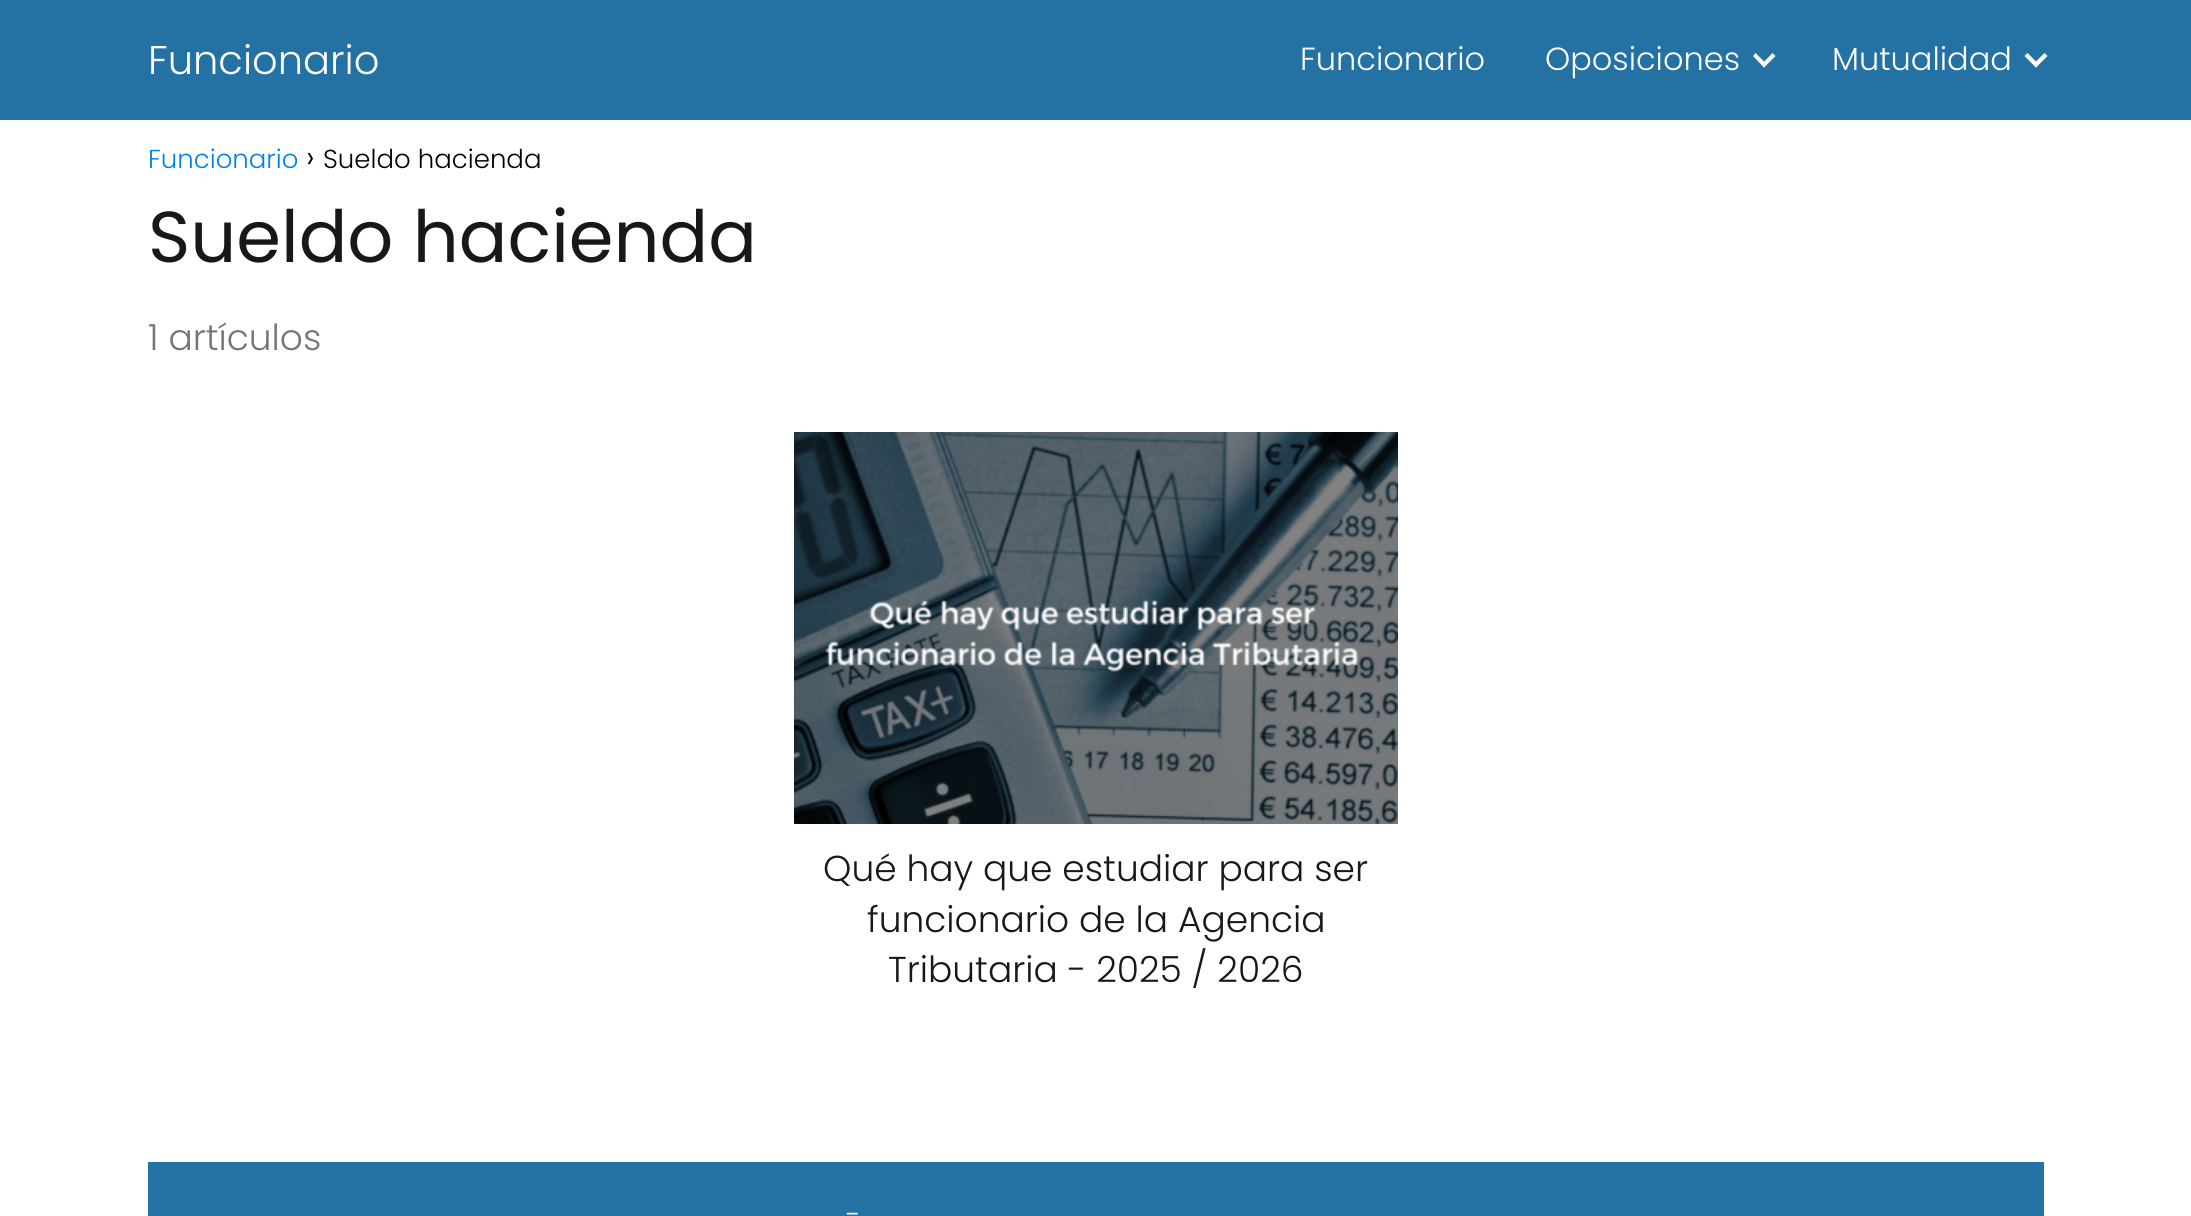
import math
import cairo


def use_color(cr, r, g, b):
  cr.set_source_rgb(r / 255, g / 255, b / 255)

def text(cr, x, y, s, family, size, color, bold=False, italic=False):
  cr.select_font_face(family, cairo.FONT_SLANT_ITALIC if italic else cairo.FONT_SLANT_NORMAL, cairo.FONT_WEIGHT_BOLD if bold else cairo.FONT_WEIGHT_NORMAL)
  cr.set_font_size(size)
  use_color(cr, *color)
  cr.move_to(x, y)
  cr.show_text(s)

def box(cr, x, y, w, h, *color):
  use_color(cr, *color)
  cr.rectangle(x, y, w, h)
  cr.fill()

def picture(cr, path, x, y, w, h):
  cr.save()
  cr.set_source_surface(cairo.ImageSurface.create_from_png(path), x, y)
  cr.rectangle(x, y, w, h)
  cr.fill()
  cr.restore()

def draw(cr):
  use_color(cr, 255, 255, 255)
  cr.paint()
  box(cr, 0, 0, 2191, 120, 36, 113, 163)
  use_color(cr, 255, 255, 255)
  cr.new_path()
  cr.move_to(1772.5, 53)
  cr.line_to(1775.5, 56)
  cr.line_to(1764, 67.5)
  cr.line_to(1761.5, 64.5)
  cr.close_path()
  cr.fill()
  cr.new_path()
  cr.move_to(1755.5, 53)
  cr.line_to(1767, 64.5)
  cr.line_to(1764, 67.5)
  cr.line_to(1753, 56)
  cr.close_path()
  cr.fill()
  cr.new_path()
  cr.move_to(2044.5, 53)
  cr.line_to(2047.5, 56)
  cr.line_to(2036, 67.5)
  cr.line_to(2033, 64.5)
  cr.close_path()
  cr.fill()
  cr.new_path()
  cr.move_to(2027.5, 53)
  cr.line_to(2039, 64.5)
  cr.line_to(2036, 67.5)
  cr.line_to(2024.5, 56)
  cr.close_path()
  cr.fill()
  picture(cr, "img_01.png", 794, 432, 604, 392)
  box(cr, 148, 1162, 1896, 54, 36, 113, 163)
  text(cr, 148, 74, "Funcionario", "Poppins Light", 40, (255, 255, 255))
  text(cr, 1300, 70, "Funcionario", "Poppins Light", 32, (255, 255, 255))
  text(cr, 1545, 70, "Oposiciones", "Poppins Light", 32, (255, 255, 255))
  text(cr, 1832, 70, "Mutualidad", "Poppins Light", 32, (255, 255, 255))
  text(cr, 148, 168, "Funcionario", "Poppins Light", 26, (1, 131, 228))
  text(cr, 306, 168, "›", "Poppins Light", 32, (0, 0, 0))
  text(cr, 323, 168, "Sueldo hacienda", "Poppins Light", 26, (0, 0, 0))
  text(cr, 148, 262, "Sueldo hacienda", "Poppins", 72, (24, 24, 24))
  text(cr, 148, 350, "1 artículos", "Poppins Light", 36, (118, 118, 118))
  text(cr, 823, 881, "Qué hay que estudiar para ser", "Poppins Light", 36, (24, 24, 24))
  text(cr, 867, 932, "funcionario de la Agencia", "Poppins Light", 36, (24, 24, 24))
  text(cr, 888, 982, "Tributaria - 2025 / 2026", "Poppins Light", 36, (24, 24, 24))
  text(cr, 846, 1224, "-", "Poppins Light", 28, (255, 255, 255))


surface = cairo.ImageSurface(cairo.FORMAT_RGB24, 2191, 1216)
cr = cairo.Context(surface)
options = cairo.FontOptions()
options.set_hint_metrics(cairo.HINT_METRICS_OFF)
options.set_hint_style(cairo.HINT_STYLE_NONE)
cr.set_font_options(options)
cr.set_miter_limit(4)
draw(cr)
surface.write_to_png("out.png")
